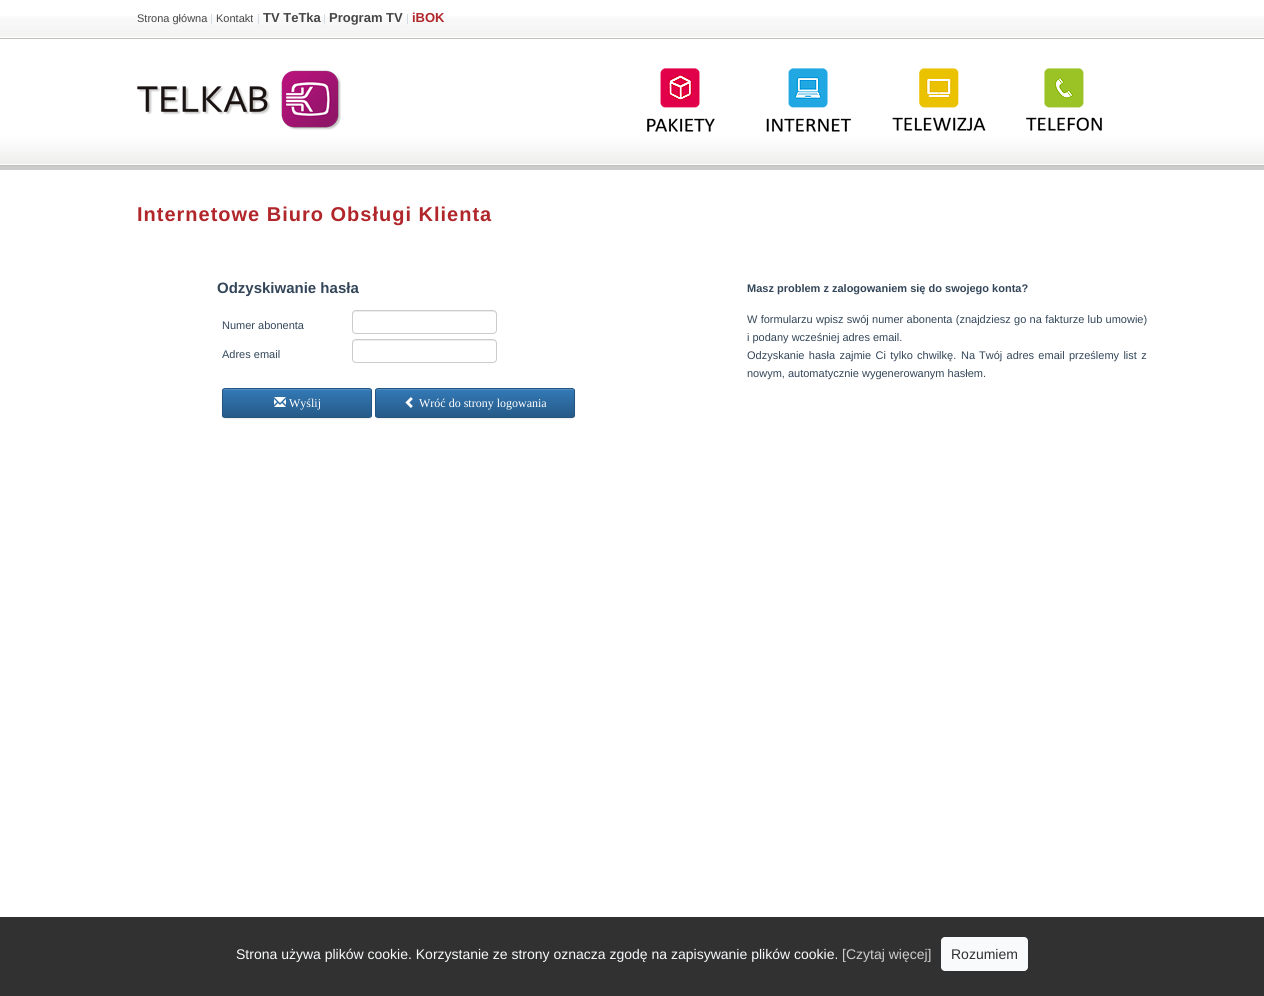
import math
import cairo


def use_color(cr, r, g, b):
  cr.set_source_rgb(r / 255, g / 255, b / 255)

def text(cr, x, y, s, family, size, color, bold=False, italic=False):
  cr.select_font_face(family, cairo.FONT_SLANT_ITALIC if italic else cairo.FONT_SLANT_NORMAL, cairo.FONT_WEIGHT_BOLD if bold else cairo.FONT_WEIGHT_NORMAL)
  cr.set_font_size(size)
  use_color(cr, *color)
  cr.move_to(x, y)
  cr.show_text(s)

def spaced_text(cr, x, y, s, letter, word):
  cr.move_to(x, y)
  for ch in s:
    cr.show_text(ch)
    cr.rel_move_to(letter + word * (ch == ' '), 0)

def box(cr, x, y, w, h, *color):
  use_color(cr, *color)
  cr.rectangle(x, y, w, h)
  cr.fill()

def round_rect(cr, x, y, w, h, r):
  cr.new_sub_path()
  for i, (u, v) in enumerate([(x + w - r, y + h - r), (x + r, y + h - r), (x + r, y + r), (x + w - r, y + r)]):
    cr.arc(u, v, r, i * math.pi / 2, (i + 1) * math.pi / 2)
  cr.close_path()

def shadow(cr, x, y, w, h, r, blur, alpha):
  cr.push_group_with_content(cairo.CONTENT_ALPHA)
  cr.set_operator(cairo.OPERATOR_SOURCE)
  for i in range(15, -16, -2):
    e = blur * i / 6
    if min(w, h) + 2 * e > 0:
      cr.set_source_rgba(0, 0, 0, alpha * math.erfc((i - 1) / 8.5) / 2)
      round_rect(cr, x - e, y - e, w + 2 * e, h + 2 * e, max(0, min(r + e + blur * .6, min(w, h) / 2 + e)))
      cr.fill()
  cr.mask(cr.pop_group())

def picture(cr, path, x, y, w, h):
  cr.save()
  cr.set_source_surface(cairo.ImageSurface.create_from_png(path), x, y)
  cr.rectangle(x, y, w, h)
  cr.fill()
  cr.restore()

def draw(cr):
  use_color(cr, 255, 255, 255)
  cr.paint()
  picture(cr, "img_08.png", 0, 16, 1264, 154)
  picture(cr, "img_01.png", 137, 70, 204, 60)
  picture(cr, "img_02.png", 647, 68, 68, 64)
  picture(cr, "img_03.png", 766, 68, 86, 64)
  picture(cr, "img_04.png", 892, 68, 94, 63)
  picture(cr, "img_05.png", 1026, 68, 76, 63)
  use_color(cr, 236, 236, 236)
  cr.new_path()
  cr.move_to(356, 312)
  cr.line_to(493, 312)
  cr.curve_to(495, 312, 496, 313, 496, 315)
  cr.line_to(496, 314)
  cr.curve_to(496, 312, 495, 311, 493, 311)
  cr.line_to(356, 311)
  cr.curve_to(354, 311, 353, 312, 353, 314)
  cr.line_to(353, 315)
  cr.curve_to(353, 313, 354, 312, 356, 312)
  cr.close_path()
  cr.fill()
  round_rect(cr, 352.5, 310.5, 144, 23, 3.5)
  use_color(cr, 204, 204, 204)
  cr.set_line_width(1)
  cr.stroke()
  use_color(cr, 236, 236, 236)
  cr.new_path()
  cr.move_to(356, 341)
  cr.line_to(493, 341)
  cr.curve_to(495, 341, 496, 342, 496, 344)
  cr.line_to(496, 343)
  cr.curve_to(496, 341, 495, 340, 493, 340)
  cr.line_to(356, 340)
  cr.curve_to(354, 340, 353, 341, 353, 343)
  cr.line_to(353, 344)
  cr.curve_to(353, 342, 354, 341, 356, 341)
  cr.close_path()
  cr.fill()
  round_rect(cr, 352.5, 339.5, 144, 23, 3.5)
  use_color(cr, 204, 204, 204)
  cr.stroke()
  use_color(cr, 0, 0, 0)
  shadow(cr, 222, 389, 150, 30, 3, 0.5, 0.07)
  cr.save()
  round_rect(cr, 222, 388, 150, 30, 3)
  cr.clip()
  gradient = cairo.LinearGradient(297, 389, 297, 417)
  gradient.add_color_stop_rgba(0, 0.2, 0.478, 0.718, 1)
  gradient.add_color_stop_rgba(1, 0.149, 0.353, 0.533, 1)
  cr.set_source(gradient)
  cr.rectangle(222, 389, 150, 28)
  cr.fill()
  cr.restore()
  cr.set_source_rgba(1, 1, 1, 0.15)
  cr.new_path()
  cr.move_to(225, 390)
  cr.line_to(369, 390)
  cr.curve_to(370, 390, 371, 391, 371, 392)
  cr.curve_to(371, 391, 371, 390, 370, 389)
  cr.line_to(249, 389)
  cr.curve_to(246, 389, 223, 383, 223, 392)
  cr.curve_to(223, 391, 224, 390, 225, 390)
  cr.close_path()
  cr.fill()
  round_rect(cr, 222.5, 388.5, 149, 29, 2.5)
  use_color(cr, 36, 85, 128)
  cr.stroke()
  picture(cr, "img_06.png", 274, 397, 12, 10)
  use_color(cr, 0, 0, 0)
  shadow(cr, 375, 389, 200, 30, 3, 0.5, 0.07)
  cr.save()
  round_rect(cr, 375, 388, 200, 30, 3)
  cr.clip()
  gradient = cairo.LinearGradient(475, 389, 475, 417)
  gradient.add_color_stop_rgba(0, 0.2, 0.478, 0.718, 1)
  gradient.add_color_stop_rgba(1, 0.149, 0.353, 0.533, 1)
  cr.set_source(gradient)
  cr.rectangle(375, 389, 200, 28)
  cr.fill()
  cr.restore()
  use_color(cr, 82, 141, 193)
  cr.new_path()
  cr.move_to(378, 390)
  cr.line_to(572, 390)
  cr.line_to(574, 391)
  cr.line_to(574, 392)
  cr.curve_to(574, 391, 574, 389, 572, 389)
  cr.line_to(378, 389)
  cr.curve_to(376, 389, 376, 391, 376, 392)
  cr.curve_to(376, 391, 377, 390, 378, 390)
  cr.close_path()
  cr.fill()
  round_rect(cr, 375.5, 388.5, 199, 29, 2.5)
  use_color(cr, 36, 85, 128)
  cr.stroke()
  picture(cr, "img_07.png", 405, 397, 8, 11)
  box(cr, 0, 917, 1264, 79, 49, 49, 49)
  use_color(cr, 249, 250, 252)
  round_rect(cr, 941, 937, 87, 34, 4)
  cr.fill()
  text(cr, 137, 22, "Strona główna", "Liberation Sans", 11, (70, 70, 70))
  text(cr, 210, 22, "|", "Liberation Sans", 11, (209, 218, 225))
  text(cr, 216, 22, "Kontakt", "Liberation Sans", 11, (70, 70, 70))
  text(cr, 257, 22, "|", "Liberation Sans", 11, (209, 218, 225))
  text(cr, 263, 22, "TV TeTka", "Liberation Sans", 13, (70, 70, 70), bold=True)
  text(cr, 323, 22, "|", "Liberation Sans", 11, (209, 218, 225))
  text(cr, 329, 22, "Program TV", "Liberation Sans", 13, (70, 70, 70), bold=True)
  text(cr, 406, 22, "|", "Liberation Sans", 11, (209, 218, 225))
  text(cr, 412, 22, "iBOK", "Liberation Sans", 13, (176, 38, 42), bold=True)
  cr.set_font_size(20)
  spaced_text(cr, 137, 221, "Internetowe Biuro Obsługi Klienta", 1, 0)
  text(cr, 217, 293, "Odzyskiwanie hasła", "Liberation Sans", 15, (51, 70, 89), bold=True)
  text(cr, 222, 329, "Numer abonenta", "Liberation Sans", 11, (51, 70, 89))
  text(cr, 222, 358, "Adres email", "Liberation Sans", 11, (51, 70, 89))
  text(cr, 289, 407, "Wyślij", "Liberation Serif", 12, (255, 255, 255))
  text(cr, 419, 407, "Wróć do strony logowania", "Liberation Serif", 12, (255, 255, 255))
  text(cr, 747, 292, "Masz problem z zalogowaniem się do swojego konta?", "Liberation Sans", 11, (51, 70, 89), bold=True)
  cr.select_font_face("Liberation Sans")
  spaced_text(cr, 747, 323, "W formularzu wpisz swój numer abonenta (znajdziesz go na fakturze lub umowie)", 0, 0.25)
  text(cr, 747, 341, "i podany wcześniej adres email.", "Liberation Sans", 11, (51, 70, 89))
  spaced_text(cr, 747, 359, "Odzyskanie hasła zajmie Ci tylko chwilkę.", 0, 1.25)
  text(cr, 961, 359, "Na", "Liberation Sans", 11, (51, 70, 89))
  spaced_text(cr, 979, 359, "Twój adres email prześlemy list z", 0, 1.25)
  text(cr, 747, 377, "nowym, automatycznie wygenerowanym hasłem.", "Liberation Sans", 11, (51, 70, 89))
  text(cr, 236, 959, "Strona używa plików cookie. Korzystanie ze strony oznacza zgodę na zapisywanie plików cookie.", "Liberation Sans", 14, (249, 250, 252))
  text(cr, 842, 959, "[Czytaj więcej]", "Liberation Sans", 14, (205, 205, 205))
  text(cr, 951, 959, "Rozumiem", "Liberation Sans", 14, (49, 49, 49))


surface = cairo.ImageSurface(cairo.FORMAT_RGB24, 1264, 996)
cr = cairo.Context(surface)
options = cairo.FontOptions()
options.set_hint_metrics(cairo.HINT_METRICS_OFF)
options.set_hint_style(cairo.HINT_STYLE_NONE)
cr.set_font_options(options)
cr.set_miter_limit(4)
draw(cr)
surface.write_to_png("out.png")
